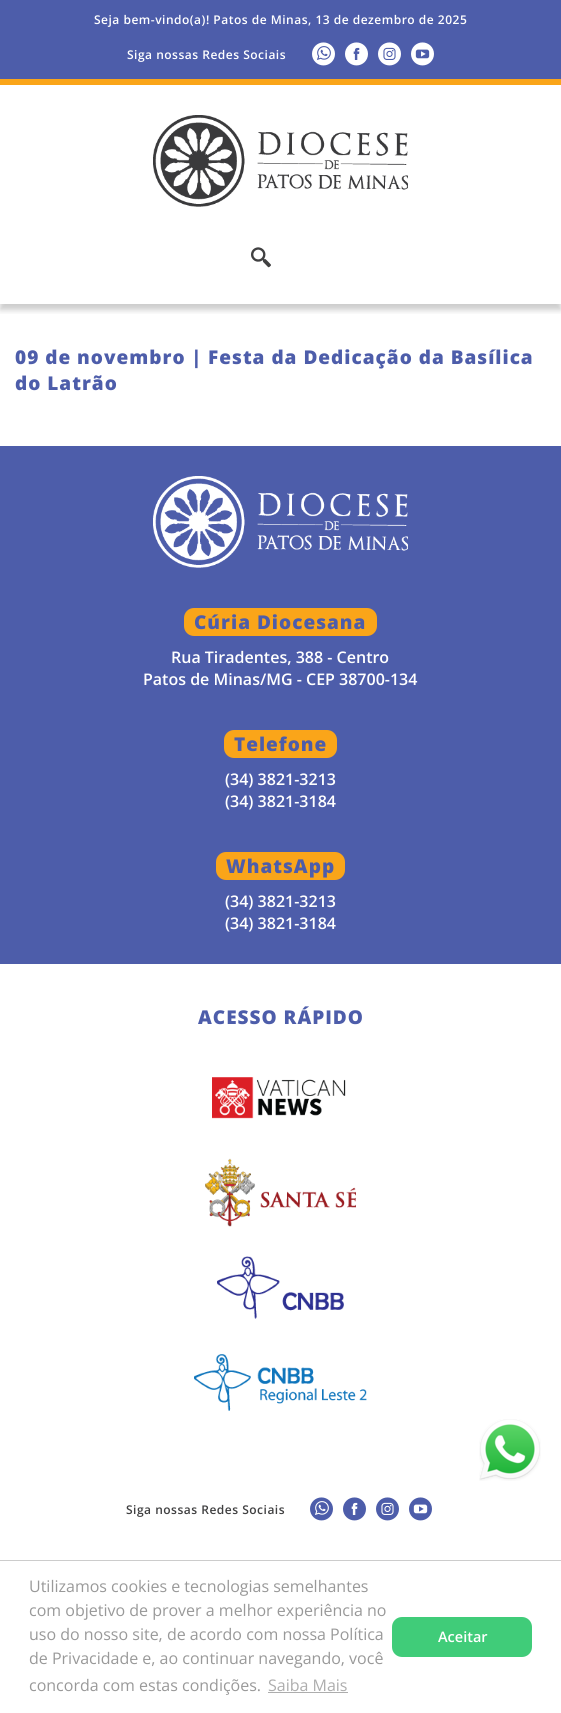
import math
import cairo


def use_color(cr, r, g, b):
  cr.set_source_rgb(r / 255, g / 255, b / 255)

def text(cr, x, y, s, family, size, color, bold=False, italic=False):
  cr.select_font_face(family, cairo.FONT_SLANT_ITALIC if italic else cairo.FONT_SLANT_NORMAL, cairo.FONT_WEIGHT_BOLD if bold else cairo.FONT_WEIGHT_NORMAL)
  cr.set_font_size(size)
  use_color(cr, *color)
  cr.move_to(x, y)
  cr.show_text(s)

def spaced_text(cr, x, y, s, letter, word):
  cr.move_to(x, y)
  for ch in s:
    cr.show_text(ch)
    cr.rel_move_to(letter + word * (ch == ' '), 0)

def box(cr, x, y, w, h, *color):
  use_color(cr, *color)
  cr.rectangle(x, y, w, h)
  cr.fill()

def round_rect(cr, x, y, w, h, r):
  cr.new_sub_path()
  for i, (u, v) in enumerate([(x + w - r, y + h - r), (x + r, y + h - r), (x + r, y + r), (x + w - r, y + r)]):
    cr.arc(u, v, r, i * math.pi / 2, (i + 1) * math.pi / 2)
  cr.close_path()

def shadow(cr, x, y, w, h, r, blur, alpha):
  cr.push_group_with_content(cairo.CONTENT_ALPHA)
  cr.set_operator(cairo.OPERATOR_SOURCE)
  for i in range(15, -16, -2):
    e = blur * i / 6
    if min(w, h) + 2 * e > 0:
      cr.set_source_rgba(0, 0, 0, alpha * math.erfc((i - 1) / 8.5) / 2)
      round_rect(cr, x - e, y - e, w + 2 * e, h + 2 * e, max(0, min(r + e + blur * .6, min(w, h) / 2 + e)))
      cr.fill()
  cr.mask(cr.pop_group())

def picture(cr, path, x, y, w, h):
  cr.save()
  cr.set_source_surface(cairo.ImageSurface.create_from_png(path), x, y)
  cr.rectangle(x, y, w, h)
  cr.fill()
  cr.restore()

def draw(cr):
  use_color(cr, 255, 255, 255)
  cr.paint()
  cr.save()
  cr.rectangle(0, 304, 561, 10)
  cr.clip()
  use_color(cr, 0, 0, 0)
  shadow(cr, 0, 6, 561, 304, 0, 3, 0.2)
  cr.restore()
  box(cr, 0, 0, 561, 79, 77, 93, 170)
  box(cr, 0, 79, 561, 6, 250, 165, 25)
  picture(cr, "img_01.png", 312, 42, 23, 24)
  picture(cr, "img_02.png", 345, 42, 23, 24)
  picture(cr, "img_03.png", 378, 42, 23, 24)
  picture(cr, "img_04.png", 411, 42, 23, 24)
  picture(cr, "img_05.png", 153, 115, 255, 92)
  picture(cr, "img_06.png", 251, 247, 20, 21)
  box(cr, 0, 446, 561, 518, 77, 93, 170)
  picture(cr, "img_07.png", 153, 476, 255, 92)
  use_color(cr, 250, 165, 25)
  round_rect(cr, 184, 608, 193, 28, 10)
  cr.fill()
  round_rect(cr, 224, 730, 113, 28, 10)
  cr.fill()
  round_rect(cr, 216, 852, 129, 28, 10)
  cr.fill()
  picture(cr, "img_08.png", 212, 1077, 134, 42)
  picture(cr, "img_09.png", 205, 1158, 151, 69)
  picture(cr, "img_10.png", 217, 1256, 127, 63)
  picture(cr, "img_11.png", 194, 1354, 173, 57)
  picture(cr, "img_12.png", 310, 1497, 23, 24)
  picture(cr, "img_13.png", 343, 1497, 23, 24)
  picture(cr, "img_14.png", 376, 1497, 23, 24)
  picture(cr, "img_15.png", 409, 1497, 23, 24)
  picture(cr, "img_16.png", 479, 1419, 62, 62)
  box(cr, 0, 1560, 561, 1, 204, 204, 204)
  box(cr, 268, 1692, 80, 1, 173, 173, 173)
  use_color(cr, 64, 204, 121)
  round_rect(cr, 392, 1617, 140, 40, 10)
  cr.fill()
  cr.select_font_face("Open Sans SemiBold")
  cr.set_font_size(12)
  use_color(cr, 255, 255, 255)
  spaced_text(cr, 94, 24, "Seja bem-vindo(a)! Patos de Minas, 13 de dezembro de 2025", 0.5, 0)
  spaced_text(cr, 127, 59, "Siga nossas Redes Sociais", 0.5, 0)
  cr.select_font_face("Open Sans ExtraBold")
  cr.set_font_size(19)
  use_color(cr, 77, 93, 170)
  spaced_text(cr, 15, 364, "09 de novembro | Festa da Dedicação da Basílica", 1, 0)
  spaced_text(cr, 15, 390, "do Latrão", 1, 0)
  spaced_text(cr, 194, 629, "Cúria Diocesana", 1, 0)
  text(cr, 171, 663, "Rua Tiradentes, 388 - Centro", "Open Sans SemiBold", 16, (255, 255, 255))
  text(cr, 143, 685, "Patos de Minas/MG - CEP 38700-134", "Open Sans SemiBold", 16, (255, 255, 255))
  cr.select_font_face("Open Sans ExtraBold")
  cr.set_font_size(19)
  use_color(cr, 77, 93, 170)
  spaced_text(cr, 234, 751, "Telefone", 1, 0)
  text(cr, 225, 785, "(34) 3821-3213", "Open Sans SemiBold", 16, (255, 255, 255))
  text(cr, 225, 807, "(34) 3821-3184", "Open Sans SemiBold", 16, (255, 255, 255))
  cr.select_font_face("Open Sans ExtraBold")
  cr.set_font_size(19)
  use_color(cr, 77, 93, 170)
  spaced_text(cr, 226, 873, "WhatsApp", 1, 0)
  text(cr, 225, 907, "(34) 3821-3213", "Open Sans SemiBold", 16, (255, 255, 255))
  text(cr, 225, 929, "(34) 3821-3184", "Open Sans SemiBold", 16, (255, 255, 255))
  cr.select_font_face("Open Sans ExtraBold")
  cr.set_font_size(19)
  use_color(cr, 77, 93, 170)
  spaced_text(cr, 198, 1024, "ACESSO RÁPIDO", 1, 0)
  cr.select_font_face("Open Sans SemiBold")
  cr.set_font_size(12)
  use_color(cr, 64, 64, 65)
  spaced_text(cr, 126, 1514, "Siga nossas Redes Sociais", 0.5, 0)
  text(cr, 29, 1592, "Utilizamos cookies e tecnologias semelhantes", "Open Sans", 16, (153, 153, 153))
  text(cr, 29, 1616, "com objetivo de prover a melhor experiência no", "Open Sans", 16, (153, 153, 153))
  text(cr, 29, 1640, "uso do nosso site, de acordo com nossa Política", "Open Sans", 16, (153, 153, 153))
  text(cr, 29, 1664, "de Privacidade e, ao continuar navegando, você", "Open Sans", 16, (153, 153, 153))
  text(cr, 29, 1691, "concorda com estas condições.", "Open Sans", 16, (153, 153, 153))
  text(cr, 268, 1691, "Saiba Mais", "Open Sans", 16, (173, 173, 173))
  text(cr, 438, 1642, "Aceitar", "Open Sans SemiBold", 14.5, (255, 255, 255))


surface = cairo.ImageSurface(cairo.FORMAT_RGB24, 561, 1713)
cr = cairo.Context(surface)
options = cairo.FontOptions()
options.set_hint_metrics(cairo.HINT_METRICS_OFF)
options.set_hint_style(cairo.HINT_STYLE_NONE)
cr.set_font_options(options)
cr.set_miter_limit(4)
draw(cr)
surface.write_to_png("out.png")
